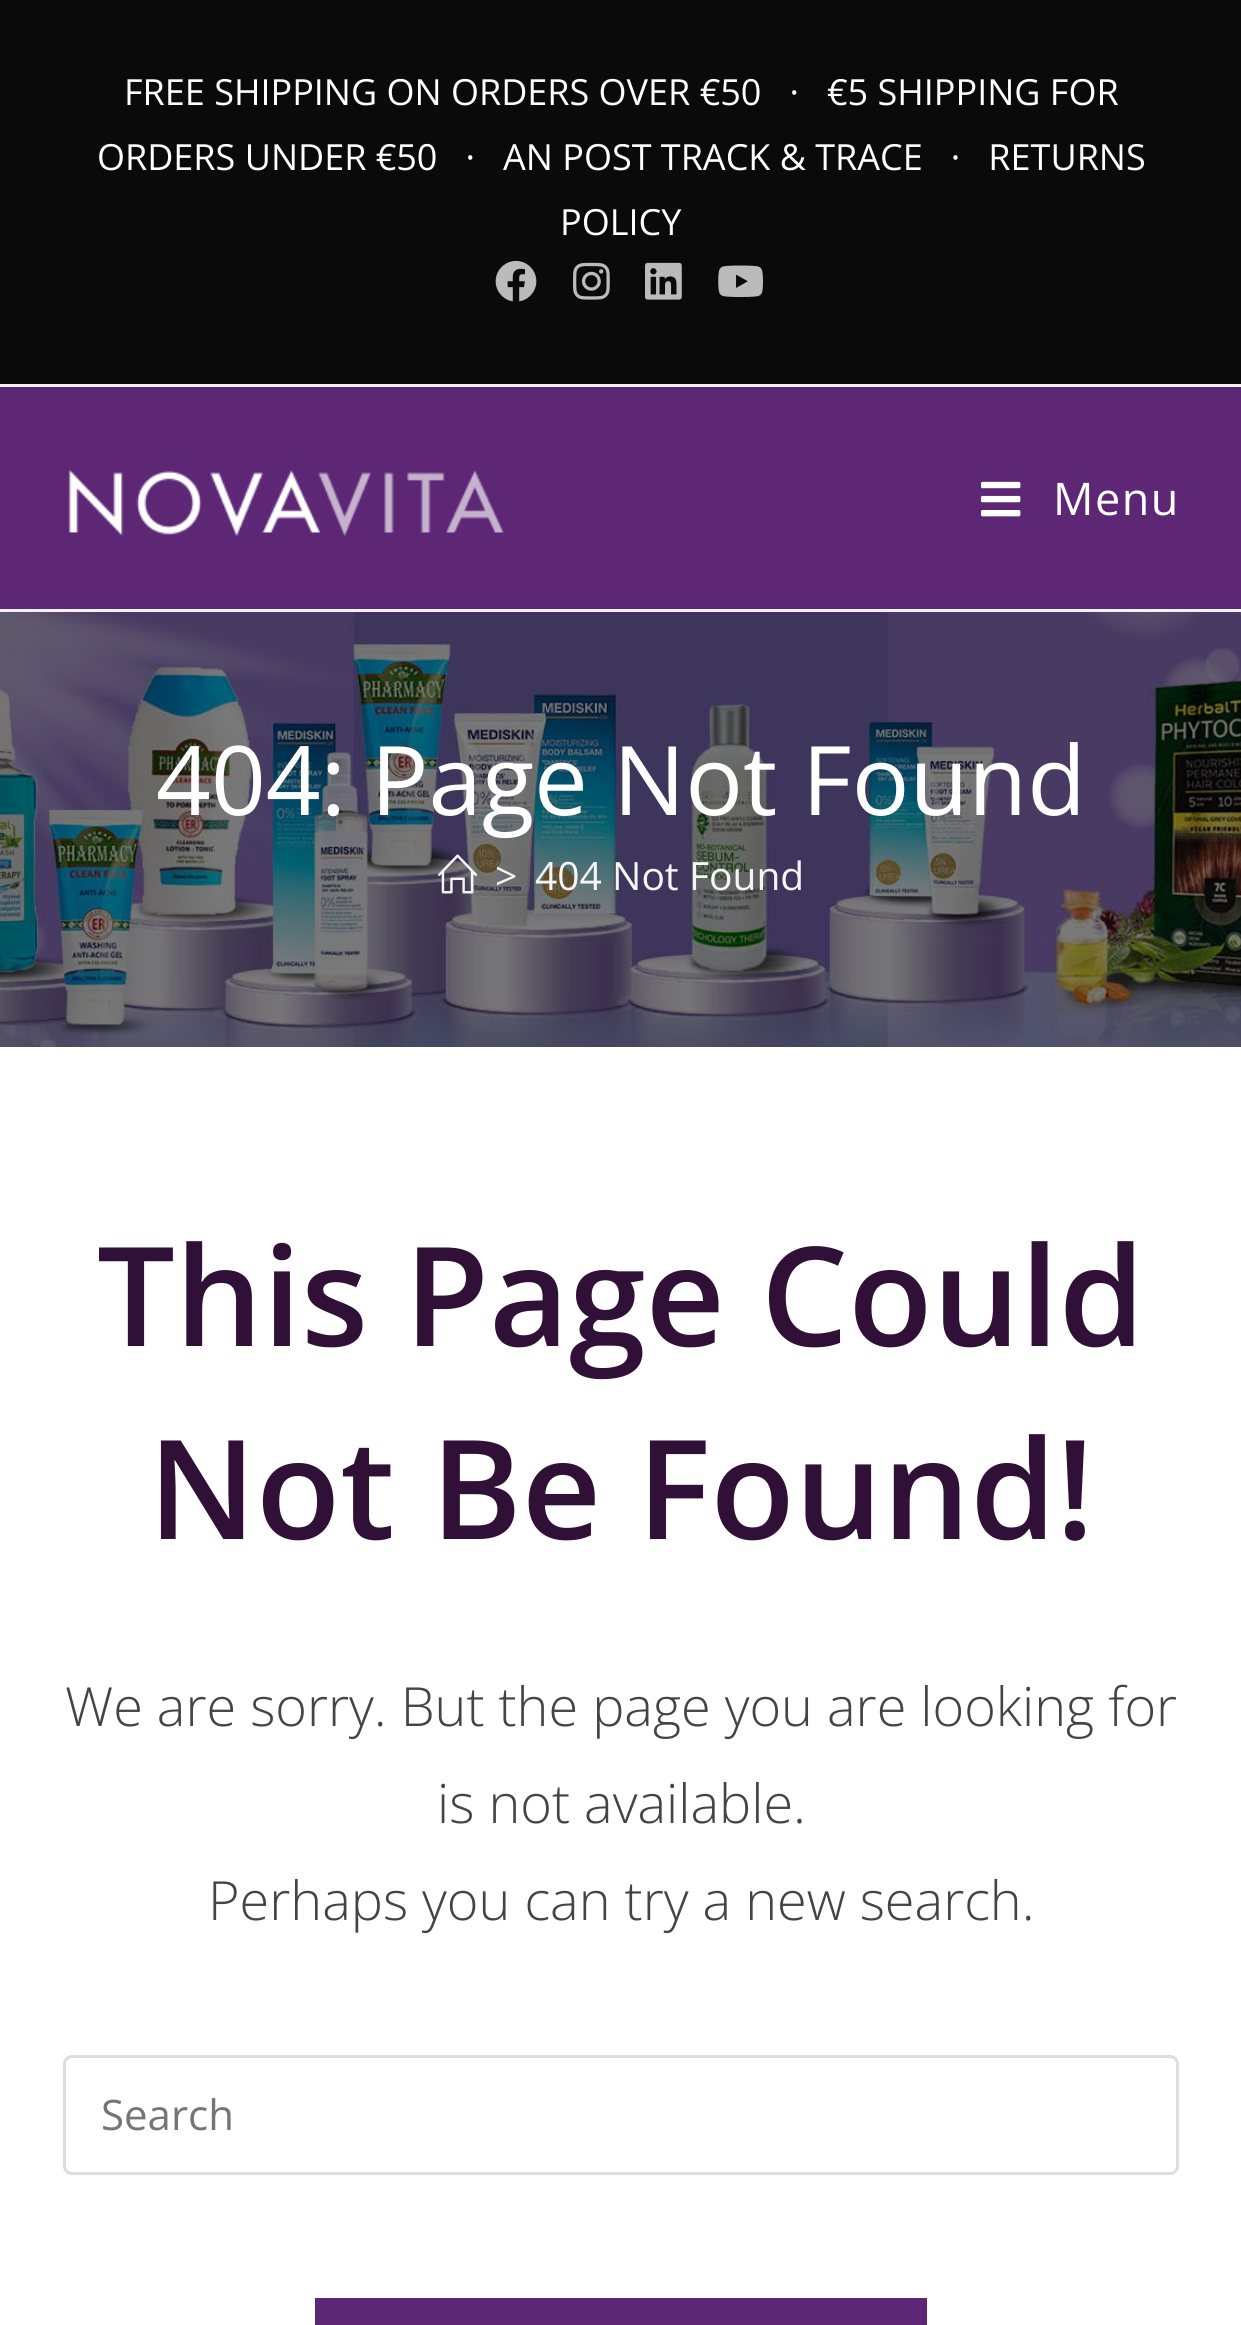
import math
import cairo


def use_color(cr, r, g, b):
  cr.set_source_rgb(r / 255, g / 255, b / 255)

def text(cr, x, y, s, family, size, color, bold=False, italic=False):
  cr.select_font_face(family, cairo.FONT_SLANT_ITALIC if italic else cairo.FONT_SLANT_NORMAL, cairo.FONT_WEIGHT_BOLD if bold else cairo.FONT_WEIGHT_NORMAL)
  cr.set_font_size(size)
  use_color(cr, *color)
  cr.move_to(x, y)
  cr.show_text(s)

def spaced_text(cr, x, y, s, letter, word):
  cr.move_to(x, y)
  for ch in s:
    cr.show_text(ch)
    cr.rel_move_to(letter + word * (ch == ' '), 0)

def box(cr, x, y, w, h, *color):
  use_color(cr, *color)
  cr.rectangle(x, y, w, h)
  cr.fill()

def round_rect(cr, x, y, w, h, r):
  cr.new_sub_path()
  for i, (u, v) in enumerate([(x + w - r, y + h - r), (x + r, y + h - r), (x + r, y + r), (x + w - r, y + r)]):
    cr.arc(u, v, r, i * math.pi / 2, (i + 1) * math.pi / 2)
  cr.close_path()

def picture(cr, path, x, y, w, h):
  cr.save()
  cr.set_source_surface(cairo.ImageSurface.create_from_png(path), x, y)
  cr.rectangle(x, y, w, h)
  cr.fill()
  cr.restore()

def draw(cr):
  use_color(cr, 255, 255, 255)
  cr.paint()
  box(cr, 0, 0, 1241, 384, 10, 10, 10)
  box(cr, 0, 384, 1241, 3, 241, 241, 241)
  picture(cr, "img_01.png", 495, 260, 42, 42)
  picture(cr, "img_02.png", 573, 262, 37, 38)
  picture(cr, "img_03.png", 645, 262, 37, 38)
  picture(cr, "img_04.png", 718, 265, 45, 32)
  box(cr, 0, 387, 1241, 222, 93, 39, 117)
  box(cr, 0, 609, 1241, 3, 241, 241, 241)
  picture(cr, "img_05.png", 68, 469, 437, 67)
  picture(cr, "img_06.png", 981, 481, 40, 36)
  picture(cr, "img_07.png", 0, 612, 1241, 435)
  picture(cr, "img_08.png", 438, 854, 40, 40)
  round_rect(cr, 64.5, 2056.5, 1113, 117, 7.5)
  use_color(cr, 221, 221, 221)
  cr.set_line_width(3)
  cr.stroke()
  box(cr, 315, 2298, 612, 27, 93, 39, 117)
  text(cr, 124, 105, "FREE SHIPPING ON ORDERS OVER €50   ·   €5 SHIPPING FOR", "Open Sans", 36, (255, 255, 255))
  text(cr, 97, 170, "ORDERS UNDER €50   ·   AN POST TRACK & TRACE   ·   RETURNS", "Open Sans", 36, (255, 255, 255))
  text(cr, 560, 235, "POLICY", "Open Sans", 36, (255, 255, 255))
  cr.set_font_size(45)
  spaced_text(cr, 1053, 515, "Menu", 1.5, 0)
  text(cr, 156, 815, "404: Page Not Found", "Open Sans", 96, (255, 255, 255))
  text(cr, 495, 890, ">", "Open Sans", 39, (245, 245, 245))
  text(cr, 535, 890, "404 Not Found", "Open Sans", 39, (245, 245, 245))
  text(cr, 97, 1346, "This Page Could", "Open Sans SemiBold", 138, (49, 16, 56))
  text(cr, 148, 1539, "Not Be Found!", "Open Sans SemiBold", 138, (49, 16, 56))
  text(cr, 65, 1726, "We are sorry. But the page you are looking for", "Open Sans Light", 54, (68, 68, 68))
  text(cr, 437, 1823, "is not available.", "Open Sans Light", 54, (68, 68, 68))
  text(cr, 208, 1920, "Perhaps you can try a new search.", "Open Sans Light", 54, (68, 68, 68))
  text(cr, 101, 2130, "Search", "Open Sans", 42, (117, 117, 117))


surface = cairo.ImageSurface(cairo.FORMAT_RGB24, 1241, 2325)
cr = cairo.Context(surface)
options = cairo.FontOptions()
options.set_hint_metrics(cairo.HINT_METRICS_OFF)
options.set_hint_style(cairo.HINT_STYLE_NONE)
cr.set_font_options(options)
cr.set_miter_limit(4)
draw(cr)
surface.write_to_png("out.png")
